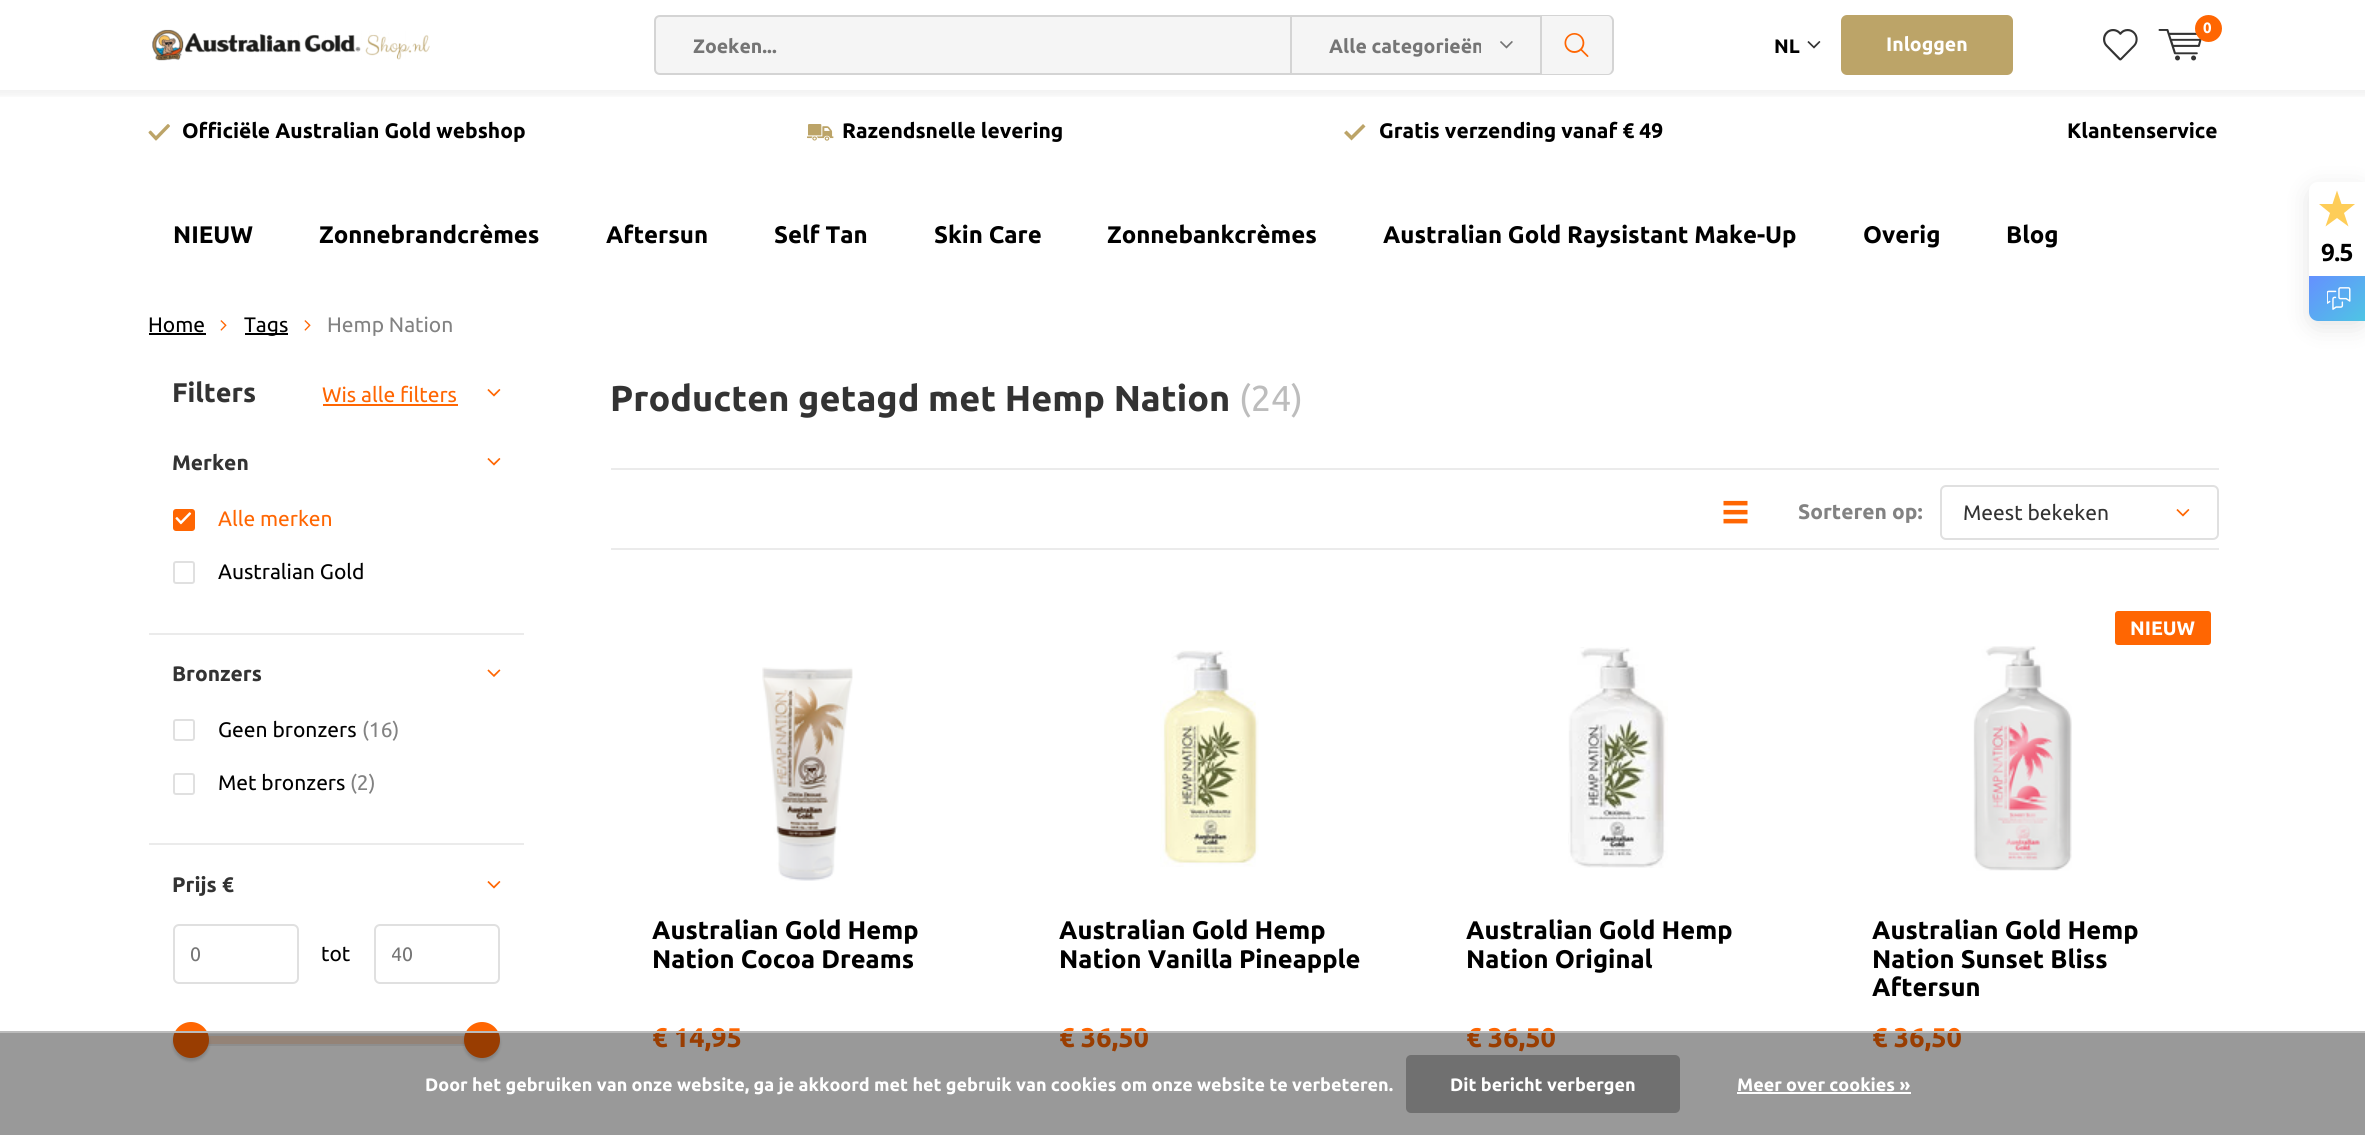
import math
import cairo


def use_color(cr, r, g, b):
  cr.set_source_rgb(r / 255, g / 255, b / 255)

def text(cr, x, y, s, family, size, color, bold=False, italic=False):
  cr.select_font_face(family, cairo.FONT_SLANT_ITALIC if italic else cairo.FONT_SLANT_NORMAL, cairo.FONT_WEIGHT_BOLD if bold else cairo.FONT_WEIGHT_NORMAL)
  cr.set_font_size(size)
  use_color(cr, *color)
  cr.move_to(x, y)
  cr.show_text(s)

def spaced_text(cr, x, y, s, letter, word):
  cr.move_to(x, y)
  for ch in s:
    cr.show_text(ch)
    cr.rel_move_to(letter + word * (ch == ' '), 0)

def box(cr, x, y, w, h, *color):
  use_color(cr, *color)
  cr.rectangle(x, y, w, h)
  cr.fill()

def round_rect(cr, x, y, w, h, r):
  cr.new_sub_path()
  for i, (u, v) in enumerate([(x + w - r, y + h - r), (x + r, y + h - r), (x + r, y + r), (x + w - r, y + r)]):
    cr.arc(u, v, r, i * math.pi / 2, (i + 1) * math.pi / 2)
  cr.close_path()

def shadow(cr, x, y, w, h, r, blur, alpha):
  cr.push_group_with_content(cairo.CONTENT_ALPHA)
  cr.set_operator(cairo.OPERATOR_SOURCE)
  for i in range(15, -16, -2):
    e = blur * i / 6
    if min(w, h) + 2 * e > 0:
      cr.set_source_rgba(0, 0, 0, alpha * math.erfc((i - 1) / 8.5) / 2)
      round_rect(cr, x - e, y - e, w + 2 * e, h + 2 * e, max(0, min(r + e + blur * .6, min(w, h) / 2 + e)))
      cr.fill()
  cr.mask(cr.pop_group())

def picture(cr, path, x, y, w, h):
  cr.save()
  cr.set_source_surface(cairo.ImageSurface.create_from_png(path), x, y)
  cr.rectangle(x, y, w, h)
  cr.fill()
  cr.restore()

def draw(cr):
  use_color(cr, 255, 255, 255)
  cr.paint()
  cr.save()
  cr.rectangle(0, 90, 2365, 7)
  cr.clip()
  use_color(cr, 0, 0, 0)
  shadow(cr, -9, 6, 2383, 90, 0, 3, 0.05)
  cr.restore()
  picture(cr, "img_01.png", 152, 29, 278, 32)
  use_color(cr, 245, 245, 245)
  cr.rectangle(1291, 16, 250, 58)
  cr.fill_preserve()
  use_color(cr, 212, 212, 212)
  cr.stroke()
  use_color(cr, 245, 245, 245)
  cr.new_path()
  cr.move_to(660, 16)
  cr.line_to(1291, 16)
  cr.line_to(1291, 74)
  cr.line_to(660, 74)
  cr.curve_to(657, 74, 655, 72, 655, 69)
  cr.line_to(655, 21)
  cr.curve_to(655, 18, 657, 16, 660, 16)
  cr.close_path()
  cr.fill_preserve()
  use_color(cr, 212, 212, 212)
  cr.stroke()
  picture(cr, "img_02.png", 1500, 41, 13, 8)
  use_color(cr, 245, 245, 245)
  cr.new_path()
  cr.move_to(1542, 15)
  cr.line_to(1608, 15)
  cr.curve_to(1611.5, 15, 1614, 17.5, 1614, 21)
  cr.line_to(1614, 69)
  cr.curve_to(1614, 72.5, 1611.5, 75, 1608, 75)
  cr.line_to(1542, 75)
  cr.close_path()
  cr.fill()
  use_color(cr, 212, 212, 212)
  cr.set_fill_rule(cairo.FILL_RULE_EVEN_ODD)
  cr.new_path()
  cr.move_to(1542, 15)
  cr.line_to(1608, 15)
  cr.curve_to(1611, 15, 1614, 18, 1614, 21)
  cr.line_to(1614, 69)
  cr.curve_to(1614, 72, 1611, 75, 1608, 75)
  cr.line_to(1542, 75)
  cr.close_path()
  cr.move_to(1542, 16)
  cr.line_to(1608, 16)
  cr.curve_to(1610, 16, 1612, 19, 1612, 21)
  cr.line_to(1612, 69)
  cr.curve_to(1612, 71, 1610, 74, 1608, 74)
  cr.line_to(1542, 74)
  cr.close_path()
  cr.fill()
  picture(cr, "img_03.png", 1564, 33, 25, 24)
  picture(cr, "img_04.png", 1807, 41, 14, 8)
  use_color(cr, 188, 164, 104)
  round_rect(cr, 1841, 15, 172, 60, 6)
  cr.fill()
  picture(cr, "img_05.png", 2103, 29, 35, 32)
  picture(cr, "img_06.png", 2158, 29, 44, 32)
  use_color(cr, 255, 102, 2)
  cr.arc(2208.5, 28.5, 13.5, 0, 2 * math.pi)
  cr.fill()
  picture(cr, "img_07.png", 148, 124, 22, 17)
  picture(cr, "img_08.png", 807, 124, 27, 17)
  use_color(cr, 188, 164, 104)
  cr.set_fill_rule(cairo.FILL_RULE_WINDING)
  cr.new_path()
  cr.move_to(1363, 124)
  cr.line_to(1351.5, 135.5)
  cr.line_to(1346.5, 130.5)
  cr.line_to(1344, 133)
  cr.line_to(1351.5, 140.5)
  cr.line_to(1365.5, 126.5)
  cr.close_path()
  cr.fill()
  box(cr, 149, 333, 57, 2, 0, 0, 0)
  picture(cr, "img_09.png", 220, 320, 7, 11)
  box(cr, 245, 333, 43, 2, 0, 0, 0)
  picture(cr, "img_09.png", 304, 320, 7, 11)
  box(cr, 323, 404, 135, 2, 255, 102, 2)
  picture(cr, "img_10.png", 487, 389, 14, 8)
  picture(cr, "img_10.png", 487, 458, 14, 8)
  round_rect(cr, 174, 510, 20, 20, 2)
  cr.fill_preserve()
  cr.stroke()
  picture(cr, "img_11.png", 175, 512, 17, 13)
  round_rect(cr, 174, 562, 20, 21, 2)
  use_color(cr, 224, 224, 224)
  cr.stroke()
  box(cr, 149, 633, 375, 2, 235, 235, 235)
  picture(cr, "img_12.png", 487, 669, 14, 8)
  round_rect(cr, 174, 720, 20, 20, 2)
  use_color(cr, 224, 224, 224)
  cr.stroke()
  round_rect(cr, 174, 774, 20, 20, 2)
  cr.stroke()
  box(cr, 149, 843, 375, 2, 235, 235, 235)
  picture(cr, "img_10.png", 487, 881, 14, 8)
  round_rect(cr, 174, 925, 124, 58, 5)
  use_color(cr, 224, 224, 224)
  cr.stroke()
  round_rect(cr, 375, 925, 124, 58, 5)
  cr.stroke()
  use_color(cr, 245, 245, 245)
  round_rect(cr, 174, 1035, 325, 10, 5)
  cr.fill_preserve()
  use_color(cr, 236, 236, 236)
  cr.stroke()
  cr.set_source_rgba(1, 0.4, 0.008, 0.19)
  cr.rectangle(208, 1036, 257, 8)
  cr.fill()
  cr.rectangle(192, 1035, 289, 10)
  use_color(cr, 236, 236, 236)
  cr.stroke()
  use_color(cr, 0, 0, 0)
  shadow(cr, 173, 1025, 36, 36, 18, 1.5, 0.16)
  use_color(cr, 255, 102, 2)
  cr.arc(191, 1040, 18, 0, 2 * math.pi)
  cr.fill()
  use_color(cr, 0, 0, 0)
  shadow(cr, 464, 1025, 36, 36, 18, 1.5, 0.16)
  use_color(cr, 255, 102, 2)
  cr.arc(482, 1040, 18, 0, 2 * math.pi)
  cr.fill()
  box(cr, 611, 468, 1608, 2, 235, 235, 235)
  box(cr, 611, 548, 1608, 2, 235, 235, 235)
  picture(cr, "img_13.png", 1723, 500, 25, 24)
  picture(cr, "img_10.png", 2176, 509, 14, 8)
  round_rect(cr, 1941, 486, 277, 53, 5)
  use_color(cr, 224, 224, 224)
  cr.stroke()
  picture(cr, "img_14.png", 762, 667, 91, 214)
  picture(cr, "img_15.png", 1160, 650, 99, 217)
  picture(cr, "img_16.png", 1568, 647, 100, 221)
  use_color(cr, 255, 102, 2)
  round_rect(cr, 2115, 611, 96, 34, 3)
  cr.fill()
  picture(cr, "img_17.png", 1973, 646, 99, 225)
  use_color(cr, 30, 30, 30)
  shadow(cr, 2309, 188, 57, 139, 9, 12, 0.12)
  use_color(cr, 255, 255, 255)
  cr.new_path()
  cr.move_to(2318, 182)
  cr.line_to(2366, 182)
  cr.line_to(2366, 321)
  cr.line_to(2318, 321)
  cr.curve_to(2313, 321, 2309, 317, 2309, 312)
  cr.line_to(2309, 191)
  cr.curve_to(2309, 186, 2313, 182, 2318, 182)
  cr.close_path()
  cr.fill()
  use_color(cr, 254, 205, 88)
  cr.new_path()
  cr.move_to(2348.5, 226.5)
  cr.line_to(2344, 213)
  cr.line_to(2355, 204)
  cr.line_to(2341.5, 204)
  cr.line_to(2337, 190.5)
  cr.line_to(2332.5, 204)
  cr.line_to(2319, 204)
  cr.line_to(2330, 213)
  cr.line_to(2325.5, 226.5)
  cr.line_to(2337, 218)
  cr.close_path()
  cr.fill()
  gradient = cairo.LinearGradient(2313, 272, 2361, 325)
  gradient.add_color_stop_rgba(0, 0.396, 0.565, 1, 1)
  gradient.add_color_stop_rgba(1, 0.306, 0.773, 0.894, 1)
  cr.set_source(gradient)
  cr.new_path()
  cr.move_to(2309, 276)
  cr.line_to(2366, 276)
  cr.line_to(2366, 321)
  cr.line_to(2318, 321)
  cr.curve_to(2313, 321, 2309, 317, 2309, 312)
  cr.close_path()
  cr.fill()
  picture(cr, "img_18.png", 2327, 287, 24, 23)
  text(cr, 693, 53, "Zoeken...", "Ubuntu", 19.5, (117, 117, 117), bold=True)
  cr.save()
  cr.rectangle(1329, 17, 152, 57)
  cr.clip()
  text(cr, 1329, 53, "Alle categorieën", "Ubuntu", 19.5, (117, 117, 117), bold=True)
  cr.restore()
  text(cr, 1774, 53, "NL", "Ubuntu", 19.5, (0, 0, 0), bold=True)
  text(cr, 1886, 51, "Inloggen", "Ubuntu", 19.5, (255, 255, 255), bold=True)
  text(cr, 2203, 33, "0", "Ubuntu", 15, (255, 255, 255), bold=True)
  text(cr, 182, 138, "Officiële Australian Gold webshop", "Ubuntu", 21, (0, 0, 0), bold=True)
  text(cr, 842, 138, "Razendsnelle levering", "Ubuntu", 21, (0, 0, 0), bold=True)
  text(cr, 1379, 138, "Gratis verzending vanaf € 49", "Ubuntu", 21, (0, 0, 0), bold=True)
  text(cr, 2067, 138, "Klantenservice", "Ubuntu", 21, (0, 0, 0), bold=True)
  text(cr, 173, 243, "NIEUW", "Ubuntu", 24, (0, 0, 0), bold=True)
  text(cr, 319, 243, "Zonnebrandcrèmes", "Ubuntu", 24, (0, 0, 0), bold=True)
  text(cr, 606, 243, "Aftersun", "Ubuntu", 24, (0, 0, 0), bold=True)
  text(cr, 774, 243, "Self Tan", "Ubuntu", 24, (0, 0, 0), bold=True)
  text(cr, 934, 243, "Skin Care", "Ubuntu", 24, (0, 0, 0), bold=True)
  text(cr, 1107, 243, "Zonnebankcrèmes", "Ubuntu", 24, (0, 0, 0), bold=True)
  text(cr, 1383, 243, "Australian Gold Raysistant Make-Up", "Ubuntu", 24, (0, 0, 0), bold=True)
  text(cr, 1863, 243, "Overig", "Ubuntu", 24, (0, 0, 0), bold=True)
  text(cr, 2006, 243, "Blog", "Ubuntu", 24, (0, 0, 0), bold=True)
  text(cr, 148, 332, "Home", "Ubuntu", 21, (0, 0, 0))
  text(cr, 244, 332, "Tags", "Ubuntu", 21, (0, 0, 0))
  text(cr, 327, 332, "Hemp Nation", "Ubuntu", 21, (130, 130, 130))
  text(cr, 172, 402, "Filters", "Ubuntu", 27, (51, 51, 51), bold=True)
  text(cr, 322, 402, "Wis alle filters", "Ubuntu", 21, (255, 102, 2))
  text(cr, 172, 470, "Merken", "Ubuntu", 21, (51, 51, 51), bold=True)
  text(cr, 218, 526, "Alle merken", "Ubuntu", 21, (255, 102, 2))
  text(cr, 218, 579, "Australian Gold", "Ubuntu", 21, (0, 0, 0))
  text(cr, 172, 681, "Bronzers", "Ubuntu", 21, (51, 51, 51), bold=True)
  text(cr, 218, 737, "Geen bronzers", "Ubuntu", 21, (0, 0, 0))
  text(cr, 362, 737, "(16)", "Ubuntu", 21, (130, 130, 130))
  text(cr, 218, 790, "Met bronzers", "Ubuntu", 21, (0, 0, 0))
  text(cr, 350, 790, "(2)", "Ubuntu", 21, (130, 130, 130))
  text(cr, 172, 892, "Prijs €", "Ubuntu", 21, (51, 51, 51), bold=True)
  cr.save()
  cr.rectangle(191, 944, 90, 21)
  cr.clip()
  text(cr, 190, 961, "0", "Ubuntu", 19.5, (117, 117, 117))
  cr.restore()
  text(cr, 321, 961, "tot", "Ubuntu", 21, (0, 0, 0))
  cr.save()
  cr.rectangle(392, 944, 90, 21)
  cr.clip()
  text(cr, 391, 961, "40", "Ubuntu", 19.5, (117, 117, 117))
  cr.restore()
  text(cr, 610, 411, "Producten getagd met Hemp Nation", "Ubuntu", 36, (51, 51, 51), bold=True)
  text(cr, 1239, 411, "(24)", "Ubuntu", 36, (189, 189, 189))
  text(cr, 1798, 519, "Sorteren op:", "Ubuntu", 21, (130, 130, 130), bold=True)
  text(cr, 1963, 520, "Meest bekeken", "Ubuntu", 21, (51, 51, 51))
  text(cr, 652, 939, "Australian Gold Hemp", "Ubuntu", 25.5, (0, 0, 0), bold=True)
  text(cr, 652, 968, "Nation Cocoa Dreams", "Ubuntu", 25.5, (0, 0, 0), bold=True)
  text(cr, 652, 1047, "€ 14,95", "Ubuntu", 27, (255, 102, 2), bold=True)
  text(cr, 1059, 939, "Australian Gold Hemp", "Ubuntu", 25.5, (0, 0, 0), bold=True)
  text(cr, 1059, 968, "Nation Vanilla Pineapple", "Ubuntu", 25.5, (0, 0, 0), bold=True)
  text(cr, 1059, 1047, "€ 36,50", "Ubuntu", 27, (255, 102, 2), bold=True)
  text(cr, 1466, 939, "Australian Gold Hemp", "Ubuntu", 25.5, (0, 0, 0), bold=True)
  text(cr, 1466, 968, "Nation Original", "Ubuntu", 25.5, (0, 0, 0), bold=True)
  text(cr, 1466, 1047, "€ 36,50", "Ubuntu", 27, (255, 102, 2), bold=True)
  text(cr, 2130, 635, "NIEUW", "Ubuntu", 19.5, (255, 255, 255), bold=True)
  text(cr, 1872, 939, "Australian Gold Hemp", "Ubuntu", 25.5, (0, 0, 0), bold=True)
  text(cr, 1872, 968, "Nation Sunset Bliss", "Ubuntu", 25.5, (0, 0, 0), bold=True)
  text(cr, 1872, 996, "Aftersun", "Ubuntu", 25.5, (0, 0, 0), bold=True)
  text(cr, 1872, 1047, "€ 36,50", "Ubuntu", 27, (255, 102, 2), bold=True)
  cr.select_font_face("Open Sans", cairo.FONT_SLANT_NORMAL, cairo.FONT_WEIGHT_BOLD)
  cr.set_font_size(24)
  use_color(cr, 0, 0, 0)
  spaced_text(cr, 2321, 261, "9.5", -1, 0)
  cr.set_source_rgba(0, 0, 0, 0.4)
  cr.rectangle(0, 1033, 2365, 102)
  cr.fill()
  box(cr, 0, 1031, 2365, 2, 187, 187, 187)
  text(cr, 425, 1091, "Door het gebruiken van onze website, ga je akkoord met het gebruik van cookies om onze website te verbeteren.", "Ubuntu", 18, (255, 255, 255), bold=True)
  use_color(cr, 112, 112, 112)
  round_rect(cr, 1406, 1055, 274, 58, 5)
  cr.fill()
  text(cr, 1450, 1091, "Dit bericht verbergen", "Ubuntu", 18, (255, 255, 255), bold=True)
  text(cr, 1737, 1091, "Meer over cookies »", "Ubuntu", 18, (255, 255, 255), bold=True)
  box(cr, 1737, 1092, 174, 2, 255, 255, 255)


surface = cairo.ImageSurface(cairo.FORMAT_RGB24, 2365, 1135)
cr = cairo.Context(surface)
options = cairo.FontOptions()
options.set_hint_metrics(cairo.HINT_METRICS_OFF)
options.set_hint_style(cairo.HINT_STYLE_NONE)
cr.set_font_options(options)
cr.set_miter_limit(4)
draw(cr)
surface.write_to_png("out.png")
